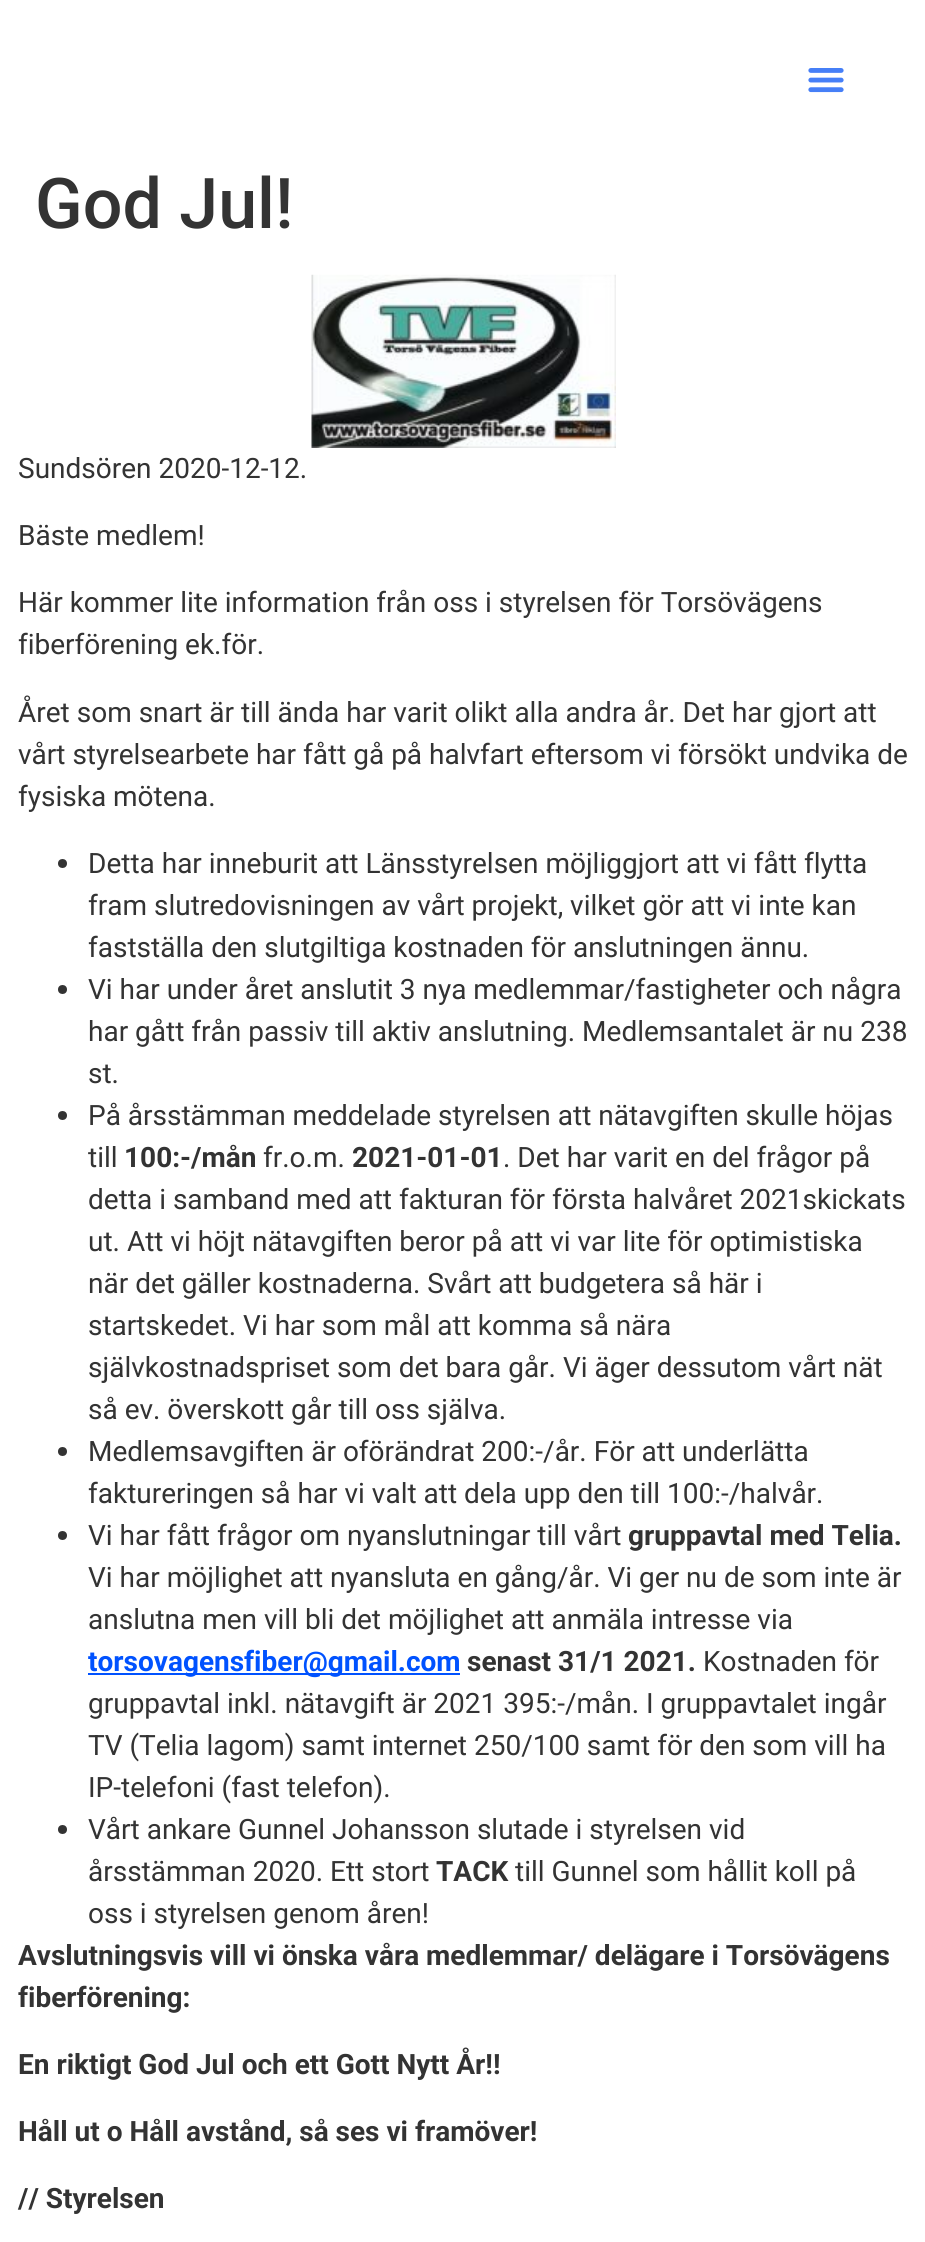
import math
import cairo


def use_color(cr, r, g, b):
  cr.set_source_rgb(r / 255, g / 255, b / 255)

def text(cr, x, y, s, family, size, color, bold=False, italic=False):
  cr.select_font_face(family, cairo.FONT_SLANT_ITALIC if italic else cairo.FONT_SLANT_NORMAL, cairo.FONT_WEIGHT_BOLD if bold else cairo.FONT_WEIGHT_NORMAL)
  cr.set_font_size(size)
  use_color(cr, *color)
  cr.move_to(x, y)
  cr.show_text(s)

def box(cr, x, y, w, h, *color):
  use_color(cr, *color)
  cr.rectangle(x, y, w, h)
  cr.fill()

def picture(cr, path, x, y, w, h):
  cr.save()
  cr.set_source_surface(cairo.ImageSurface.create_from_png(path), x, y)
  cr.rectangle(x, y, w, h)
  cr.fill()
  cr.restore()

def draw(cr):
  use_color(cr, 255, 255, 255)
  cr.paint()
  picture(cr, "img_01.png", 808, 68, 36, 25)
  picture(cr, "img_02.png", 311, 274, 305, 174)
  use_color(cr, 51, 51, 51)
  cr.arc(62.5, 863.5, 4.5, 0, 2 * math.pi)
  cr.fill()
  cr.arc(62.5, 989.5, 4.5, 0, 2 * math.pi)
  cr.fill()
  cr.arc(62.5, 1115.5, 4.5, 0, 2 * math.pi)
  cr.fill()
  cr.arc(62.5, 1451.5, 4.5, 0, 2 * math.pi)
  cr.fill()
  cr.arc(62.5, 1535.5, 4.5, 0, 2 * math.pi)
  cr.fill()
  box(cr, 88, 1673, 372, 2, 0, 82, 255)
  use_color(cr, 51, 51, 51)
  cr.arc(62.5, 1829.5, 4.5, 0, 2 * math.pi)
  cr.fill()
  text(cr, 35, 228, "God Jul!", "Roboto Medium", 70, (51, 51, 51))
  text(cr, 18, 478, "Sundsören 2020-12-12.", "Roboto", 28, (51, 51, 51))
  text(cr, 18, 545, "Bäste medlem!", "Roboto", 28, (51, 51, 51))
  text(cr, 18, 612, "Här kommer lite information från oss i styrelsen för Torsövägens", "Roboto", 28, (51, 51, 51))
  text(cr, 18, 654, "fiberförening ek.för.", "Roboto", 28, (51, 51, 51))
  text(cr, 18, 722, "Året som snart är till ända har varit olikt alla andra år. Det har gjort att", "Roboto", 28, (51, 51, 51))
  text(cr, 18, 764, "vårt styrelsearbete har fått gå på halvfart eftersom vi försökt undvika de", "Roboto", 28, (51, 51, 51))
  text(cr, 18, 806, "fysiska mötena.", "Roboto", 28, (51, 51, 51))
  text(cr, 88, 873, "Detta har inneburit att Länsstyrelsen möjliggjort att vi fått flytta", "Roboto", 28, (51, 51, 51))
  text(cr, 88, 915, "fram slutredovisningen av vårt projekt, vilket gör att vi inte kan", "Roboto", 28, (51, 51, 51))
  text(cr, 88, 957, "fastställa den slutgiltiga kostnaden för anslutningen ännu.", "Roboto", 28, (51, 51, 51))
  text(cr, 88, 999, "Vi har under året anslutit 3 nya medlemmar/fastigheter och några", "Roboto", 28, (51, 51, 51))
  text(cr, 88, 1041, "har gått från passiv till aktiv anslutning. Medlemsantalet är nu 238", "Roboto", 28, (51, 51, 51))
  text(cr, 88, 1083, "st.", "Roboto", 28, (51, 51, 51))
  text(cr, 88, 1125, "På årsstämman meddelade styrelsen att nätavgiften skulle höjas", "Roboto", 28, (51, 51, 51))
  text(cr, 88, 1167, "till", "Roboto", 28, (51, 51, 51))
  text(cr, 124, 1167, "100:-/mån", "Roboto", 28, (51, 51, 51), bold=True)
  text(cr, 263, 1167, "fr.o.m.", "Roboto", 28, (51, 51, 51))
  text(cr, 352, 1167, "2021-01-01", "Roboto", 28, (51, 51, 51), bold=True)
  text(cr, 503, 1167, ". Det har varit en del frågor på", "Roboto", 28, (51, 51, 51))
  text(cr, 88, 1209, "detta i samband med att fakturan för första halvåret 2021skickats", "Roboto", 28, (51, 51, 51))
  text(cr, 88, 1251, "ut. Att vi höjt nätavgiften beror på att vi var lite för optimistiska", "Roboto", 28, (51, 51, 51))
  text(cr, 88, 1293, "när det gäller kostnaderna. Svårt att budgetera så här i", "Roboto", 28, (51, 51, 51))
  text(cr, 88, 1335, "startskedet. Vi har som mål att komma så nära", "Roboto", 28, (51, 51, 51))
  text(cr, 88, 1377, "självkostnadspriset som det bara går. Vi äger dessutom vårt nät", "Roboto", 28, (51, 51, 51))
  text(cr, 88, 1419, "så ev. överskott går till oss själva.", "Roboto", 28, (51, 51, 51))
  text(cr, 88, 1461, "Medlemsavgiften är oförändrat 200:-/år. För att underlätta", "Roboto", 28, (51, 51, 51))
  text(cr, 88, 1503, "faktureringen så har vi valt att dela upp den till 100:-/halvår.", "Roboto", 28, (51, 51, 51))
  text(cr, 88, 1545, "Vi har fått frågor om nyanslutningar till vårt", "Roboto", 28, (51, 51, 51))
  text(cr, 628, 1545, "gruppavtal med Telia.", "Roboto", 28, (51, 51, 51), bold=True)
  text(cr, 88, 1587, "Vi har möjlighet att nyansluta en gång/år. Vi ger nu de som inte är", "Roboto", 28, (51, 51, 51))
  text(cr, 88, 1629, "anslutna men vill bli det möjlighet att anmäla intresse via", "Roboto", 28, (51, 51, 51))
  text(cr, 88, 1671, "torsovagensfiber@gmail.com", "Roboto", 28, (0, 82, 255), bold=True)
  text(cr, 467, 1671, "senast 31/1 2021.", "Roboto", 28, (51, 51, 51), bold=True)
  text(cr, 703, 1671, "Kostnaden för", "Roboto", 28, (51, 51, 51))
  text(cr, 88, 1713, "gruppavtal inkl. nätavgift är 2021 395:-/mån. I gruppavtalet ingår", "Roboto", 28, (51, 51, 51))
  text(cr, 88, 1755, "TV (Telia lagom) samt internet 250/100 samt för den som vill ha", "Roboto", 28, (51, 51, 51))
  text(cr, 88, 1797, "IP-telefoni (fast telefon).", "Roboto", 28, (51, 51, 51))
  text(cr, 88, 1839, "Vårt ankare Gunnel Johansson slutade i styrelsen vid", "Roboto", 28, (51, 51, 51))
  text(cr, 88, 1881, "årsstämman 2020. Ett stort", "Roboto", 28, (51, 51, 51))
  text(cr, 436, 1881, "TACK", "Roboto", 28, (51, 51, 51), bold=True)
  text(cr, 515, 1881, "till Gunnel som hållit koll på", "Roboto", 28, (51, 51, 51))
  text(cr, 88, 1923, "oss i styrelsen genom åren!", "Roboto", 28, (51, 51, 51))
  text(cr, 18, 1965, "Avslutningsvis vill vi önska våra medlemmar/ delägare i Torsövägens", "Roboto", 28, (51, 51, 51), bold=True)
  text(cr, 18, 2007, "fiberförening:", "Roboto", 28, (51, 51, 51), bold=True)
  text(cr, 18, 2074, "En riktigt God Jul och ett Gott Nytt År!!", "Roboto", 28, (51, 51, 51), bold=True)
  text(cr, 18, 2141, "Håll ut o Håll avstånd, så ses vi framöver!", "Roboto", 28, (51, 51, 51), bold=True)
  text(cr, 18, 2208, "// Styrelsen", "Roboto", 28, (51, 51, 51), bold=True)


surface = cairo.ImageSurface(cairo.FORMAT_RGB24, 925, 2242)
cr = cairo.Context(surface)
options = cairo.FontOptions()
options.set_hint_metrics(cairo.HINT_METRICS_OFF)
options.set_hint_style(cairo.HINT_STYLE_NONE)
cr.set_font_options(options)
cr.set_miter_limit(4)
draw(cr)
surface.write_to_png("out.png")
